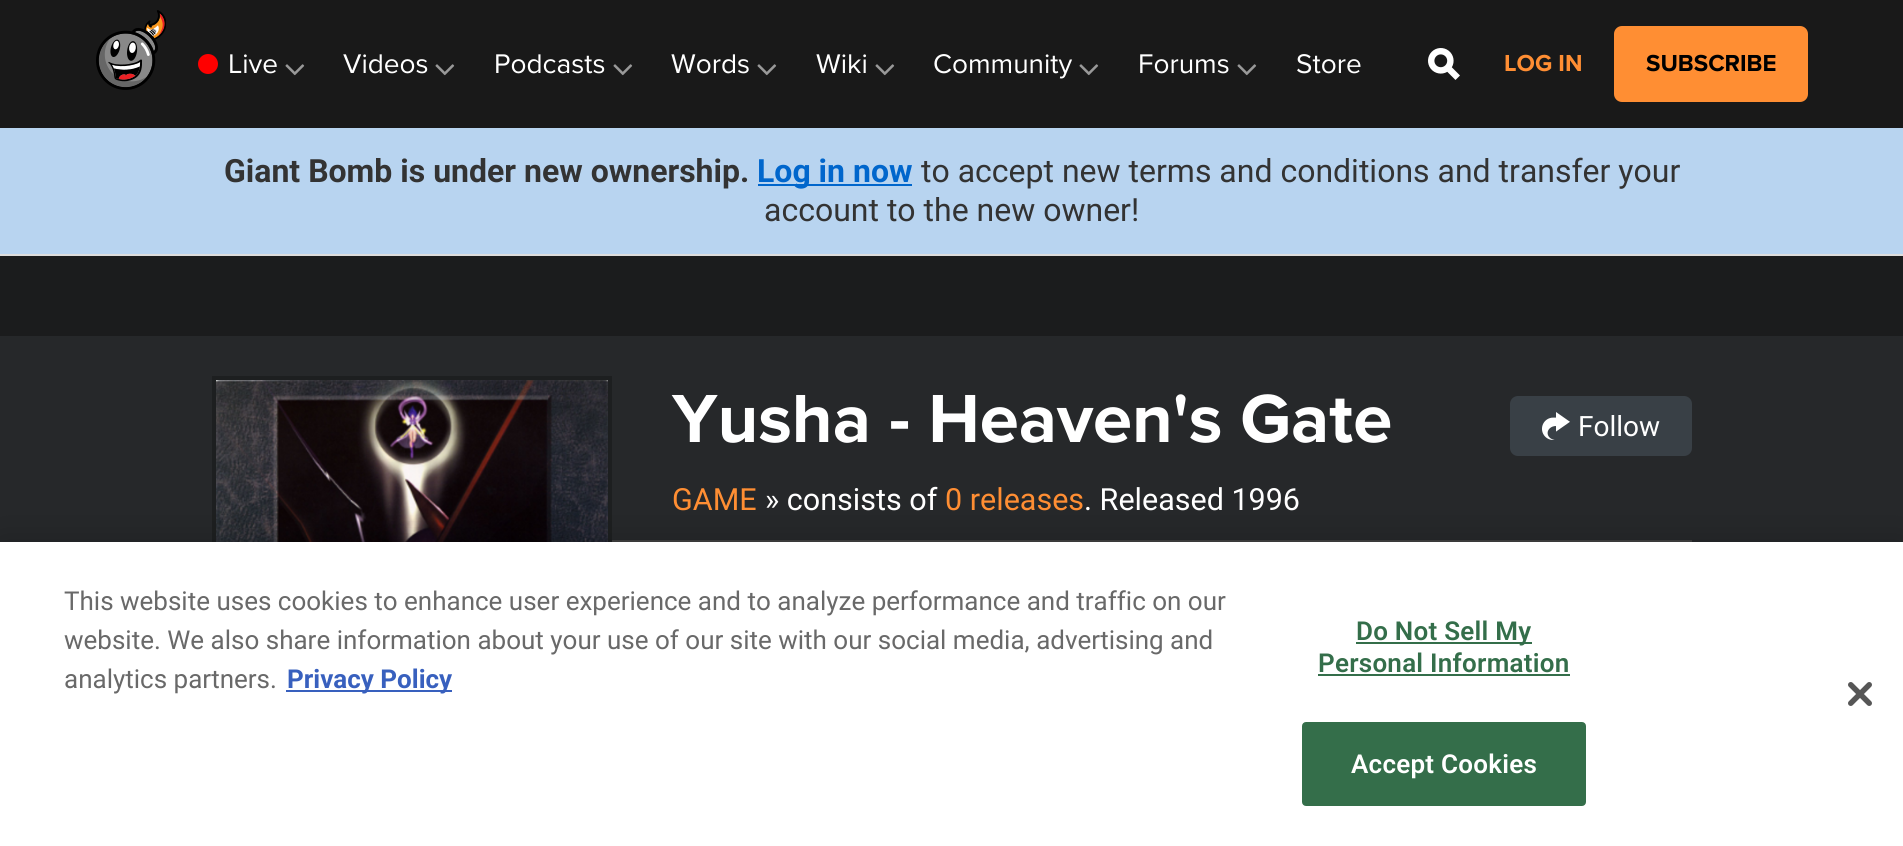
import math
import cairo


def use_color(cr, r, g, b):
  cr.set_source_rgb(r / 255, g / 255, b / 255)

def text(cr, x, y, s, family, size, color, bold=False, italic=False):
  cr.select_font_face(family, cairo.FONT_SLANT_ITALIC if italic else cairo.FONT_SLANT_NORMAL, cairo.FONT_WEIGHT_BOLD if bold else cairo.FONT_WEIGHT_NORMAL)
  cr.set_font_size(size)
  use_color(cr, *color)
  cr.move_to(x, y)
  cr.show_text(s)

def spaced_text(cr, x, y, s, letter, word):
  cr.move_to(x, y)
  for ch in s:
    cr.show_text(ch)
    cr.rel_move_to(letter + word * (ch == ' '), 0)

def box(cr, x, y, w, h, *color):
  use_color(cr, *color)
  cr.rectangle(x, y, w, h)
  cr.fill()

def round_rect(cr, x, y, w, h, r):
  cr.new_sub_path()
  for i, (u, v) in enumerate([(x + w - r, y + h - r), (x + r, y + h - r), (x + r, y + r), (x + w - r, y + r)]):
    cr.arc(u, v, r, i * math.pi / 2, (i + 1) * math.pi / 2)
  cr.close_path()

def shadow(cr, x, y, w, h, r, blur, alpha):
  cr.push_group_with_content(cairo.CONTENT_ALPHA)
  cr.set_operator(cairo.OPERATOR_SOURCE)
  for i in range(15, -16, -2):
    e = blur * i / 6
    if min(w, h) + 2 * e > 0:
      cr.set_source_rgba(0, 0, 0, alpha * math.erfc((i - 1) / 8.5) / 2)
      round_rect(cr, x - e, y - e, w + 2 * e, h + 2 * e, max(0, min(r + e + blur * .6, min(w, h) / 2 + e)))
      cr.fill()
  cr.mask(cr.pop_group())

def picture(cr, path, x, y, w, h):
  cr.save()
  cr.set_source_surface(cairo.ImageSurface.create_from_png(path), x, y)
  cr.rectangle(x, y, w, h)
  cr.fill()
  cr.restore()

def draw(cr):
  use_color(cr, 38, 40, 42)
  cr.paint()
  box(cr, 0, 0, 1903, 128, 25, 25, 25)
  picture(cr, "img_01.png", 96, 10, 70, 80)
  use_color(cr, 255, 0, 0)
  cr.arc(208, 64, 10, 0, 2 * math.pi)
  cr.fill()
  picture(cr, "img_02.png", 285, 64, 20, 12)
  picture(cr, "img_02.png", 435, 64, 20, 12)
  picture(cr, "img_02.png", 613, 64, 20, 12)
  picture(cr, "img_02.png", 757, 64, 20, 12)
  picture(cr, "img_02.png", 875, 64, 20, 12)
  picture(cr, "img_02.png", 1079, 64, 20, 12)
  picture(cr, "img_02.png", 1237, 64, 20, 12)
  picture(cr, "img_03.png", 1428, 48, 32, 32)
  use_color(cr, 255, 142, 51)
  round_rect(cr, 1614, 26, 194, 76, 8)
  cr.fill()
  box(cr, 0, 128, 1903, 126, 184, 212, 240)
  box(cr, 0, 254, 1903, 2, 221, 221, 221)
  box(cr, 758, 184, 154, 2, 0, 102, 204)
  box(cr, 0, 256, 1903, 80, 27, 28, 29)
  cr.rectangle(214, 378, 396, 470)
  use_color(cr, 29, 31, 32)
  cr.set_line_width(4)
  cr.stroke()
  picture(cr, "img_04.png", 216, 380, 392, 162)
  use_color(cr, 57, 64, 70)
  round_rect(cr, 1511, 397, 180, 58, 7)
  cr.fill_preserve()
  cr.set_line_width(2)
  cr.stroke()
  picture(cr, "img_05.png", 1542, 412, 28, 28)
  box(cr, 612, 540, 1080, 2, 64, 64, 64)
  use_color(cr, 0, 0, 0)
  shadow(cr, 0, 542, 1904, 304, 0, 18, 0.2)
  box(cr, 0, 542, 1903, 304, 255, 255, 255)
  box(cr, 286, 690, 166, 2, 56, 96, 190)
  box(cr, 1356, 642, 176, 2, 52, 110, 74)
  box(cr, 1318, 674, 252, 2, 52, 110, 74)
  round_rect(cr, 1303, 723, 282, 82, 3)
  cr.fill_preserve()
  cr.stroke()
  picture(cr, "img_06.png", 1848, 682, 24, 24)
  text(cr, 228, 73, "Live", "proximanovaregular", 28, (255, 255, 255))
  text(cr, 343, 73, "Videos", "proximanovaregular", 28, (255, 255, 255))
  text(cr, 494, 73, "Podcasts", "proximanovaregular", 28, (255, 255, 255))
  text(cr, 671, 73, "Words", "proximanovaregular", 28, (255, 255, 255))
  text(cr, 816, 73, "Wiki", "proximanovaregular", 28, (255, 255, 255))
  text(cr, 933, 73, "Community", "proximanovaregular", 28, (255, 255, 255))
  text(cr, 1138, 73, "Forums", "proximanovaregular", 28, (255, 255, 255))
  text(cr, 1296, 73, "Store", "proximanovaregular", 28, (255, 255, 255))
  text(cr, 1504, 71, "LOG IN", "Proxima Nova", 24, (255, 142, 51), bold=True)
  text(cr, 1646, 71, "SUBSCRIBE", "Proxima Nova", 24, (0, 0, 0), bold=True)
  text(cr, 224, 182, "Giant Bomb is under new ownership.", "Roboto", 32, (51, 51, 51), bold=True)
  text(cr, 757, 182, "Log in now", "Roboto", 32, (0, 102, 204), bold=True)
  text(cr, 921, 182, "to accept new terms and conditions and transfer your", "Roboto", 32, (51, 51, 51))
  text(cr, 764, 221, "account to the new owner!", "Roboto", 32, (51, 51, 51))
  text(cr, 672, 442, "Yusha - Heaven's Gate", "Proxima Nova", 70.5, (255, 255, 255), bold=True)
  text(cr, 1578, 436, "Follow", "Roboto", 28, (255, 255, 255))
  text(cr, 672, 510, "GAME", "Roboto", 30.5, (255, 142, 51))
  text(cr, 765, 510, "» consists of", "Roboto", 30.5, (255, 255, 255))
  text(cr, 945, 510, "0 releases", "Roboto", 30.5, (255, 142, 51))
  text(cr, 1084, 510, ". Released 1996", "Roboto", 30.5, (255, 255, 255))
  text(cr, 64, 610, "This website uses cookies to enhance user experience and to analyze performance and traffic on our", "Roboto", 26, (105, 105, 105))
  text(cr, 64, 649, "website. We also share information about your use of our site with our social media, advertising and", "Roboto", 26, (105, 105, 105))
  text(cr, 64, 688, "analytics partners.", "Roboto", 26, (105, 105, 105))
  text(cr, 287, 688, "Privacy Policy", "Roboto", 26, (56, 96, 190), bold=True)
  cr.select_font_face("Roboto SemiBold")
  use_color(cr, 52, 110, 74)
  spaced_text(cr, 1356, 640, "Do Not Sell My", 0.25, 0)
  spaced_text(cr, 1318, 672, "Personal Information", 0.25, 0)
  use_color(cr, 255, 255, 255)
  spaced_text(cr, 1351, 773, "Accept Cookies", 0.25, 0)


surface = cairo.ImageSurface(cairo.FORMAT_RGB24, 1903, 846)
cr = cairo.Context(surface)
options = cairo.FontOptions()
options.set_hint_metrics(cairo.HINT_METRICS_OFF)
options.set_hint_style(cairo.HINT_STYLE_NONE)
cr.set_font_options(options)
cr.set_miter_limit(4)
draw(cr)
surface.write_to_png("out.png")
